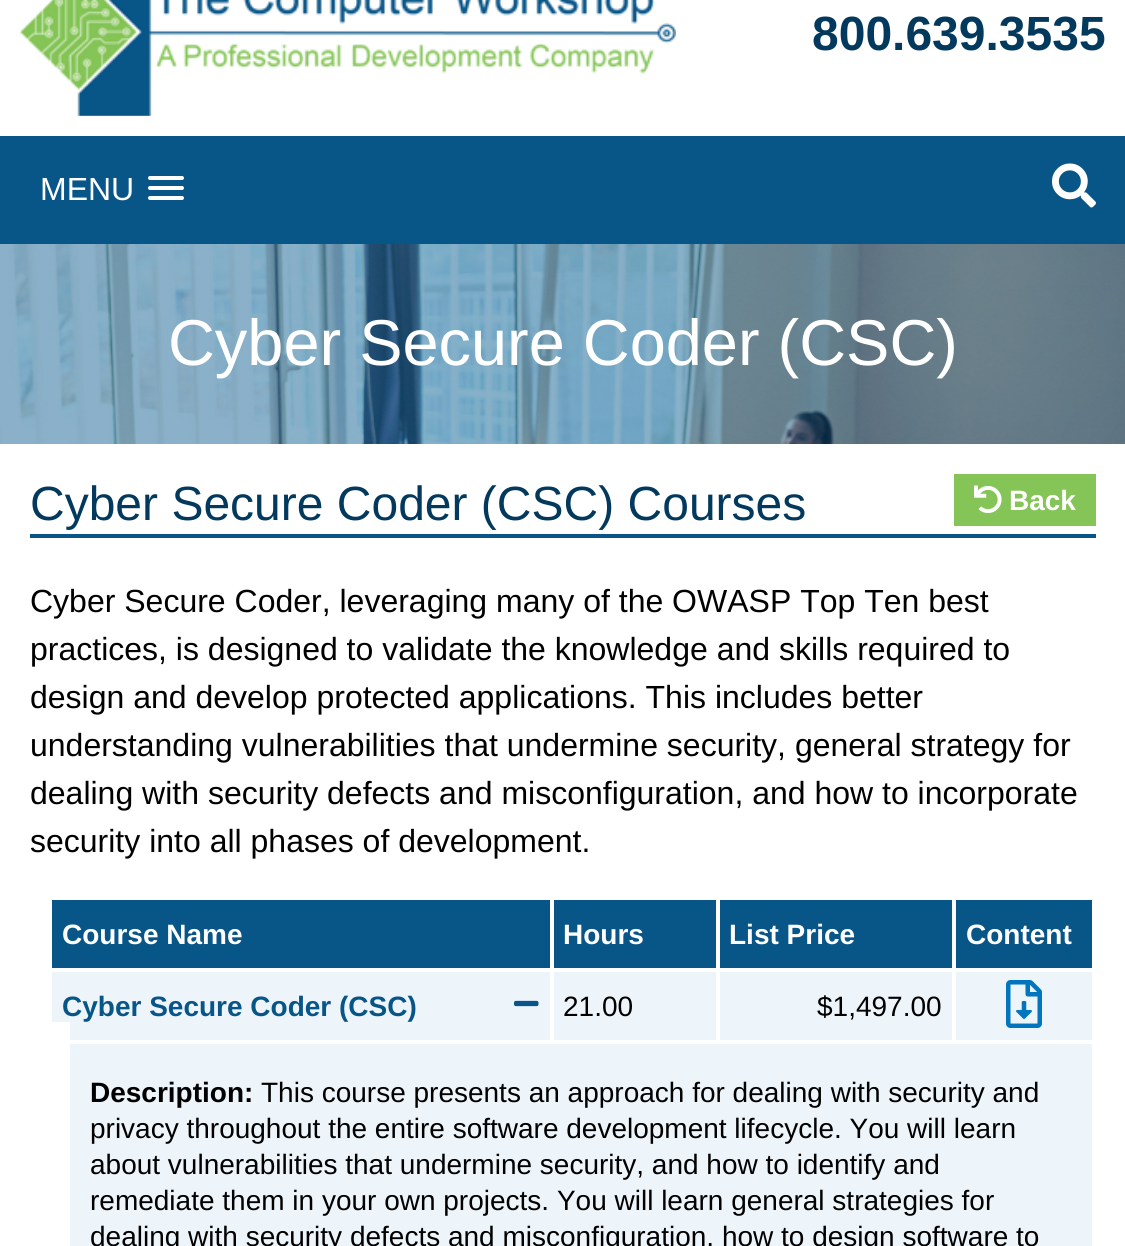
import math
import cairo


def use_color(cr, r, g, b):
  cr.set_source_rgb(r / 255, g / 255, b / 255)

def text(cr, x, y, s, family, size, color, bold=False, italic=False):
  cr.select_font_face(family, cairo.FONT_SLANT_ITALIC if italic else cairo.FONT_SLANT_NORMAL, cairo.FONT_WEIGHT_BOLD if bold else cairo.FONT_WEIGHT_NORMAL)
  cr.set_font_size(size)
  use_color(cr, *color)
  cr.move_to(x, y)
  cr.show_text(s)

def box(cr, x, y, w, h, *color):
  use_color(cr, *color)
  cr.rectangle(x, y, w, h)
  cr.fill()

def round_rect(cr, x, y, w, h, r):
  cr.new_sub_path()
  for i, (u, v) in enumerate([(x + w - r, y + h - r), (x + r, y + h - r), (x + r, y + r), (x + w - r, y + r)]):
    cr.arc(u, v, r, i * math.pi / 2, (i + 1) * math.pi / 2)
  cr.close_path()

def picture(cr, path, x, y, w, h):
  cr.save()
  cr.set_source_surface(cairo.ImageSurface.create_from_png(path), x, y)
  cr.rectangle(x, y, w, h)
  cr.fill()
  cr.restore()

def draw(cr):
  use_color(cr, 255, 255, 255)
  cr.paint()
  picture(cr, "img_01.png", 20, 0, 656, 116)
  box(cr, 0, 136, 1125, 108, 8, 85, 135)
  use_color(cr, 255, 255, 255)
  round_rect(cr, 148, 176, 36, 4, 2)
  cr.fill()
  round_rect(cr, 148, 186, 36, 4, 2)
  cr.fill()
  round_rect(cr, 148, 196, 36, 4, 2)
  cr.fill()
  picture(cr, "img_02.png", 1052, 163, 44, 45)
  picture(cr, "img_03.png", 0, 244, 1125, 200)
  box(cr, 30, 534, 1066, 4, 8, 85, 135)
  box(cr, 954, 474, 142, 52, 133, 197, 87)
  picture(cr, "img_04.png", 974, 485, 28, 28)
  box(cr, 52, 900, 1040, 68, 8, 85, 135)
  box(cr, 52, 972, 1040, 68, 237, 245, 250)
  picture(cr, "img_05.png", 514, 1000, 25, 7)
  box(cr, 550, 896, 4, 148, 255, 255, 255)
  box(cr, 716, 896, 4, 148, 255, 255, 255)
  box(cr, 952, 896, 4, 148, 255, 255, 255)
  picture(cr, "img_06.png", 1006, 980, 36, 48)
  box(cr, 70, 1044, 1022, 202, 237, 245, 250)
  box(cr, 52, 1022, 18, 18, 255, 255, 255)
  text(cr, 812, 50, "800.639.3535", "Liberation Sans", 48, (2, 57, 93), bold=True)
  text(cr, 40, 200, "MENU", "Liberation Sans", 32, (255, 255, 255))
  text(cr, 168, 365, "Cyber Secure Coder (CSC)", "Liberation Sans", 64.9, (255, 255, 255))
  text(cr, 30, 520, "Cyber Secure Coder (CSC) Courses", "Liberation Sans", 48, (2, 57, 93))
  text(cr, 1009, 510, "Back", "Liberation Sans", 28, (255, 255, 255), bold=True)
  text(cr, 30, 612, "Cyber Secure Coder, leveraging many of the OWASP Top Ten best", "Liberation Sans", 32, (0, 0, 0))
  text(cr, 30, 660, "practices, is designed to validate the knowledge and skills required to", "Liberation Sans", 32, (0, 0, 0))
  text(cr, 30, 708, "design and develop protected applications. This includes better", "Liberation Sans", 32, (0, 0, 0))
  text(cr, 30, 756, "understanding vulnerabilities that undermine security, general strategy for", "Liberation Sans", 32, (0, 0, 0))
  text(cr, 30, 804, "dealing with security defects and misconfiguration, and how to incorporate", "Liberation Sans", 32, (0, 0, 0))
  text(cr, 30, 852, "security into all phases of development.", "Liberation Sans", 32, (0, 0, 0))
  text(cr, 62, 944, "Course Name", "Liberation Sans", 28, (255, 255, 255), bold=True)
  text(cr, 563, 944, "Hours", "Liberation Sans", 28, (255, 255, 255), bold=True)
  text(cr, 729, 944, "List Price", "Liberation Sans", 28, (255, 255, 255), bold=True)
  text(cr, 966, 944, "Content", "Liberation Sans", 28, (255, 255, 255), bold=True)
  text(cr, 62, 1016, "Cyber Secure Coder (CSC)", "Liberation Sans", 28, (8, 85, 135), bold=True)
  text(cr, 563, 1016, "21.00", "Liberation Sans", 28, (0, 0, 0))
  text(cr, 817, 1016, "$1,497.00", "Liberation Sans", 28, (0, 0, 0))
  text(cr, 90, 1102, "Description:", "Liberation Sans", 28, (0, 0, 0), bold=True)
  text(cr, 261, 1102, "This course presents an approach for dealing with security and", "Liberation Sans", 28, (0, 0, 0))
  text(cr, 90, 1138, "privacy throughout the entire software development lifecycle. You will learn", "Liberation Sans", 28, (0, 0, 0))
  text(cr, 90, 1174, "about vulnerabilities that undermine security, and how to identify and", "Liberation Sans", 28, (0, 0, 0))
  text(cr, 90, 1210, "remediate them in your own projects. You will learn general strategies for", "Liberation Sans", 28, (0, 0, 0))
  text(cr, 90, 1246, "dealing with security defects and misconfiguration, how to design software to", "Liberation Sans", 28, (0, 0, 0))


surface = cairo.ImageSurface(cairo.FORMAT_RGB24, 1125, 1246)
cr = cairo.Context(surface)
options = cairo.FontOptions()
options.set_hint_metrics(cairo.HINT_METRICS_OFF)
options.set_hint_style(cairo.HINT_STYLE_NONE)
cr.set_font_options(options)
cr.set_miter_limit(4)
draw(cr)
surface.write_to_png("out.png")
